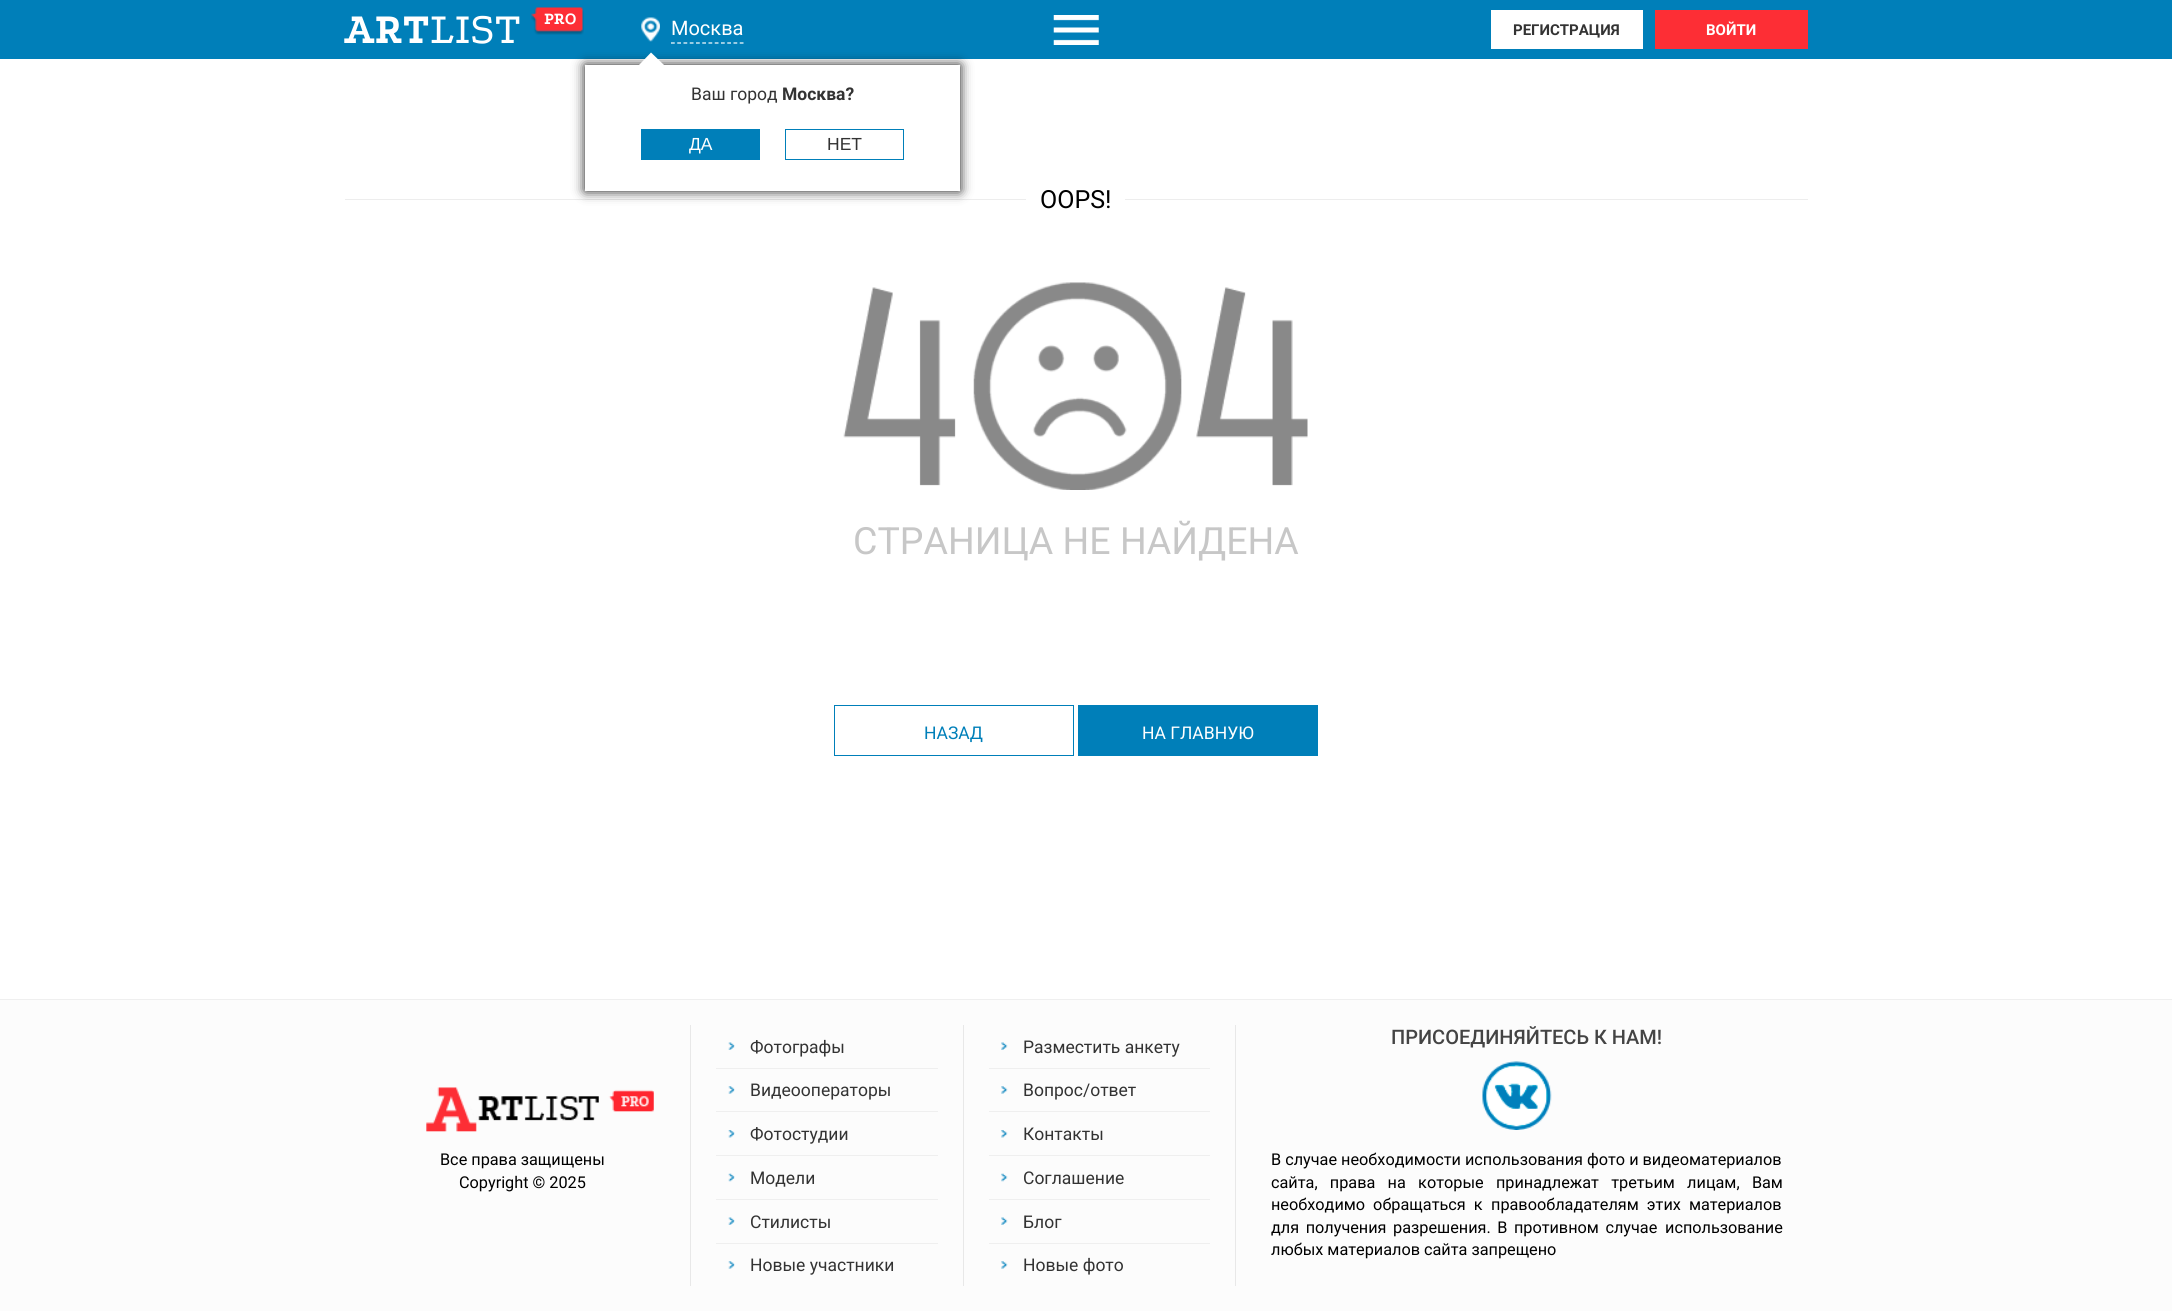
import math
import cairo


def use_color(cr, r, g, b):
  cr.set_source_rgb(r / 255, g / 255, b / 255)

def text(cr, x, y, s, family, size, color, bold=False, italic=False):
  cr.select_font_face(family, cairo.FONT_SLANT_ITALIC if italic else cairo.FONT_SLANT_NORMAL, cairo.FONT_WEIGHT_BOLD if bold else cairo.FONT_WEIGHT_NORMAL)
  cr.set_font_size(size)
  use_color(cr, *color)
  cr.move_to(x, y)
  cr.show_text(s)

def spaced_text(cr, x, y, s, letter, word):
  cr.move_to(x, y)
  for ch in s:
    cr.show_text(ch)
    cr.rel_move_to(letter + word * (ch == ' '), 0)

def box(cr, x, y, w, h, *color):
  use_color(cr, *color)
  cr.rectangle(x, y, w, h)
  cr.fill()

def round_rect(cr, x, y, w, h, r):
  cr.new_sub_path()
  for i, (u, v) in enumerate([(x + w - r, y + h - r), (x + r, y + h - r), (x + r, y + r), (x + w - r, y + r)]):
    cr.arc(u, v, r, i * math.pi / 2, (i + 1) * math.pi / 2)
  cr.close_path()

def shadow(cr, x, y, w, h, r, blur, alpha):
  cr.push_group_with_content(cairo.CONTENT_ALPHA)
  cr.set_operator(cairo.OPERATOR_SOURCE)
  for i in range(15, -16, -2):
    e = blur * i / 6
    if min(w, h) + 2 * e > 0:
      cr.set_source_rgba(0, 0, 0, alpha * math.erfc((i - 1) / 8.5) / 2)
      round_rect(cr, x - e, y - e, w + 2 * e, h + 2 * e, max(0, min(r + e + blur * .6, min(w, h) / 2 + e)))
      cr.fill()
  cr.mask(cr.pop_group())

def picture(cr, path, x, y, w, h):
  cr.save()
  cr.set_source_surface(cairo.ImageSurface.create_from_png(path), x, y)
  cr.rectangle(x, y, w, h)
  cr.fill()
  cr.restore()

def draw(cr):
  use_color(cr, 255, 255, 255)
  cr.paint()
  box(cr, 0, 0, 2172, 59, 0, 127, 185)
  picture(cr, "img_01.png", 531, 7, 53, 28)
  picture(cr, "img_02.png", 641, 17, 19, 25)
  cr.new_path()
  cr.move_to(671, 43)
  cr.line_to(744, 43)
  use_color(cr, 255, 255, 255)
  cr.set_line_width(1.2)
  cr.set_dash([3.75, 2.5])
  cr.stroke()
  box(cr, 345, 199, 1463, 1, 237, 237, 237)
  cr.save()
  cr.set_fill_rule(cairo.FILL_RULE_EVEN_ODD)
  cr.new_path()
  cr.move_to(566, 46)
  cr.line_to(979, 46)
  cr.line_to(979, 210)
  cr.line_to(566, 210)
  cr.close_path()
  cr.move_to(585, 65)
  cr.line_to(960, 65)
  cr.line_to(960, 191)
  cr.line_to(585, 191)
  cr.close_path()
  cr.clip()
  use_color(cr, 0, 0, 0)
  shadow(cr, 585, 65, 375, 126, 0, 6, 0.9)
  cr.restore()
  use_color(cr, 255, 255, 255)
  cr.new_path()
  cr.move_to(664, 65)
  cr.line_to(639, 65)
  cr.line_to(651, 52.5)
  cr.close_path()
  cr.fill()
  box(cr, 641, 129, 119, 31, 0, 127, 185)
  cr.rectangle(785.5, 129.5, 118, 30)
  cr.set_line_width(1)
  cr.set_dash([])
  cr.stroke()
  picture(cr, "img_03.png", 1053, 15, 46, 30)
  box(cr, 1491, 10, 152, 39, 255, 255, 255)
  box(cr, 1655, 10, 153, 39, 253, 46, 53)
  box(cr, 1026, 199, 99, 1, 255, 255, 255)
  picture(cr, "img_04.png", 843, 282, 465, 208)
  cr.rectangle(834.5, 705.5, 239, 50)
  use_color(cr, 0, 127, 185)
  cr.stroke()
  box(cr, 1078, 705, 240, 51, 0, 127, 185)
  box(cr, 0, 1000, 2172, 311, 252, 252, 252)
  box(cr, 0, 999, 2172, 1, 239, 239, 239)
  box(cr, 690, 1025, 1, 261, 232, 232, 232)
  picture(cr, "img_05.png", 426, 1087, 228, 45)
  box(cr, 963, 1025, 1, 261, 232, 232, 232)
  box(cr, 716, 1068, 222, 1, 239, 239, 239)
  picture(cr, "img_06.png", 728, 1042, 7, 8)
  box(cr, 716, 1111, 222, 1, 239, 239, 239)
  picture(cr, "img_07.png", 728, 1086, 7, 8)
  box(cr, 716, 1155, 222, 1, 239, 239, 239)
  picture(cr, "img_08.png", 728, 1130, 7, 8)
  box(cr, 716, 1199, 222, 1, 239, 239, 239)
  picture(cr, "img_09.png", 728, 1173, 7, 9)
  box(cr, 716, 1243, 222, 1, 239, 239, 239)
  picture(cr, "img_06.png", 728, 1217, 7, 8)
  picture(cr, "img_07.png", 728, 1261, 7, 8)
  box(cr, 1235, 1025, 1, 261, 232, 232, 232)
  box(cr, 989, 1068, 221, 1, 239, 239, 239)
  picture(cr, "img_10.png", 1001, 1042, 7, 8)
  box(cr, 989, 1111, 221, 1, 239, 239, 239)
  picture(cr, "img_11.png", 1001, 1086, 7, 8)
  box(cr, 989, 1155, 221, 1, 239, 239, 239)
  picture(cr, "img_12.png", 1001, 1130, 7, 8)
  box(cr, 989, 1199, 221, 1, 239, 239, 239)
  picture(cr, "img_13.png", 1001, 1173, 7, 9)
  box(cr, 989, 1243, 221, 1, 239, 239, 239)
  picture(cr, "img_10.png", 1001, 1217, 7, 8)
  picture(cr, "img_11.png", 1001, 1261, 7, 8)
  picture(cr, "img_14.png", 1482, 1061, 70, 69)
  text(cr, 344, 43, "ART", "Podkova", 45, (255, 255, 255), bold=True)
  text(cr, 430, 43, "LIST", "Podkova", 45, (255, 255, 255))
  text(cr, 544, 24, "PRO", "Podkova", 17.5, (255, 255, 255), bold=True)
  text(cr, 671, 35, "Москва", "Roboto", 20, (255, 255, 255))
  text(cr, 691, 100, "Ваш город", "Roboto", 17.5, (51, 51, 51))
  text(cr, 782, 100, "Москва?", "Roboto", 17.5, (51, 51, 51), bold=True)
  text(cr, 689, 150, "ДА", "Liberation Sans", 17.5, (255, 255, 255))
  text(cr, 827, 150, "НЕТ", "Liberation Sans", 17.5, (51, 51, 51))
  text(cr, 1513, 35, "РЕГИСТРАЦИЯ", "Roboto", 15, (51, 51, 51), bold=True)
  text(cr, 1706, 35, "ВОЙТИ", "Roboto", 15, (255, 255, 255), bold=True)
  text(cr, 1040, 208, "OOPS!", "Roboto", 25, (0, 0, 0))
  text(cr, 853, 554, "СТРАНИЦА НЕ НАЙДЕНА", "Roboto", 37.5, (199, 199, 199))
  text(cr, 924, 739, "НАЗАД", "Roboto", 17.5, (0, 127, 185))
  text(cr, 1142, 739, "НА ГЛАВНУЮ", "Roboto", 17.5, (255, 255, 255))
  text(cr, 440, 1165, "Все права защищены", "Roboto", 16.25, (0, 0, 0))
  text(cr, 459, 1188, "Copyright © 2025", "Roboto", 16.25, (0, 0, 0))
  text(cr, 750, 1053, "Фотографы", "Roboto", 17.5, (51, 51, 51))
  text(cr, 750, 1096, "Видеооператоры", "Roboto", 17.5, (51, 51, 51))
  text(cr, 750, 1140, "Фотостудии", "Roboto", 17.5, (51, 51, 51))
  text(cr, 750, 1184, "Модели", "Roboto", 17.5, (51, 51, 51))
  text(cr, 750, 1228, "Стилисты", "Roboto", 17.5, (51, 51, 51))
  text(cr, 750, 1271, "Новые участники", "Roboto", 17.5, (51, 51, 51))
  text(cr, 1023, 1053, "Разместить анкету", "Roboto", 17.5, (51, 51, 51))
  text(cr, 1023, 1096, "Вопрос/ответ", "Roboto", 17.5, (51, 51, 51))
  text(cr, 1023, 1140, "Контакты", "Roboto", 17.5, (51, 51, 51))
  text(cr, 1023, 1184, "Соглашение", "Roboto", 17.5, (51, 51, 51))
  text(cr, 1023, 1228, "Блог", "Roboto", 17.5, (51, 51, 51))
  text(cr, 1023, 1271, "Новые фото", "Roboto", 17.5, (51, 51, 51))
  text(cr, 1391, 1044, "ПРИСОЕДИНЯЙТЕСЬ К НАМ!", "Roboto Medium", 20, (68, 68, 68))
  text(cr, 1271, 1165, "В случае необходимости использования фото и видеоматериалов", "Roboto", 16.25, (0, 0, 0))
  spaced_text(cr, 1271, 1188, "сайта, права на которые принадлежат третьим лицам, Вам", 0, 8.25)
  spaced_text(cr, 1271, 1210, "необходимо обращаться к", 0, 4)
  spaced_text(cr, 1491, 1210, "правообладателям этих материалов", 0, 4)
  spaced_text(cr, 1271, 1233, "для получения разрешения. В противном случае", 0, 2.5)
  text(cr, 1665, 1233, "использование", "Roboto", 16.25, (0, 0, 0))
  text(cr, 1271, 1255, "любых материалов сайта запрещено", "Roboto", 16.25, (0, 0, 0))


surface = cairo.ImageSurface(cairo.FORMAT_RGB24, 2172, 1311)
cr = cairo.Context(surface)
options = cairo.FontOptions()
options.set_hint_metrics(cairo.HINT_METRICS_OFF)
options.set_hint_style(cairo.HINT_STYLE_NONE)
cr.set_font_options(options)
cr.set_miter_limit(4)
draw(cr)
surface.write_to_png("out.png")
